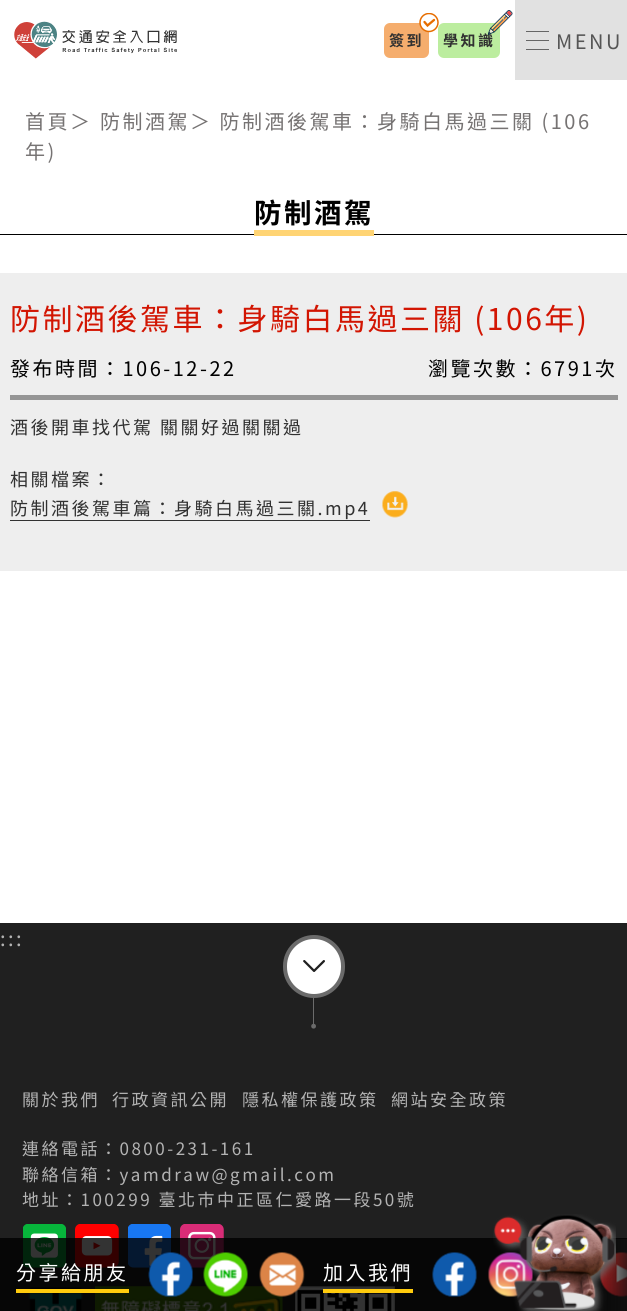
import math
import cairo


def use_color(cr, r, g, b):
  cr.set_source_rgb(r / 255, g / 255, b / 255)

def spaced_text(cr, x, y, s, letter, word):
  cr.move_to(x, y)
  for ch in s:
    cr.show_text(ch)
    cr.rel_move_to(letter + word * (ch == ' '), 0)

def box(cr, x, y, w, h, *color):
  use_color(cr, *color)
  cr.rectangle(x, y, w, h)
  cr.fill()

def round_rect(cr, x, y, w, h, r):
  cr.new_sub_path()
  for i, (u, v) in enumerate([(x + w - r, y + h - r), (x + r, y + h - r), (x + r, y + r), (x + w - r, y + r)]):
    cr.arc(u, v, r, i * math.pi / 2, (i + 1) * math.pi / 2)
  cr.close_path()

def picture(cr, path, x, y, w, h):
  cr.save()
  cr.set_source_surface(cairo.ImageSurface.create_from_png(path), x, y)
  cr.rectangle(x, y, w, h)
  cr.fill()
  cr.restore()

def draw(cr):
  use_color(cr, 255, 255, 255)
  cr.paint()
  picture(cr, "img_01.png", 14, 21, 163, 38)
  use_color(cr, 245, 173, 109)
  round_rect(cr, 384, 23, 45, 35, 6)
  cr.fill()
  use_color(cr, 255, 255, 255)
  cr.arc(429, 22.5, 9, 0, 2 * math.pi)
  cr.fill()
  cr.save()
  cr.rectangle(419, 13, 20, 20)
  cr.clip()
  cr.arc(429, 22.5, 9, 0, 2 * math.pi)
  use_color(cr, 230, 109, 0)
  cr.set_line_width(1.5)
  cr.stroke()
  cr.restore()
  cr.new_path()
  cr.move_to(424.5, 22)
  cr.line_to(427.5, 25.5)
  cr.line_to(434, 20)
  use_color(cr, 230, 109, 0)
  cr.set_line_width(2.3)
  cr.set_line_cap(cairo.LINE_CAP_ROUND)
  cr.stroke()
  use_color(cr, 188, 237, 159)
  round_rect(cr, 438, 23, 62, 35, 6)
  cr.fill()
  box(cr, 515, 0, 112, 80, 225, 225, 225)
  box(cr, 526, 40, 23, 1, 102, 102, 102)
  box(cr, 526, 31, 23, 1, 102, 102, 102)
  box(cr, 526, 49, 23, 1, 102, 102, 102)
  box(cr, 0, 234, 627, 1, 0, 0, 0)
  box(cr, 254, 230, 120, 6, 255, 212, 116)
  box(cr, 0, 273, 627, 298, 238, 238, 238)
  box(cr, 10, 395, 608, 5, 149, 149, 149)
  box(cr, 10, 520, 360, 1, 49, 49, 49)
  picture(cr, "img_03.png", 382, 491, 26, 27)
  box(cr, 0, 923, 627, 388, 32, 32, 32)
  use_color(cr, 255, 255, 255)
  round_rect(cr, 285, 937, 58, 59, 29)
  cr.fill_preserve()
  use_color(cr, 107, 107, 107)
  cr.set_line_width(4)
  cr.set_line_cap(cairo.LINE_CAP_BUTT)
  cr.stroke()
  picture(cr, "img_04.png", 303, 960, 22, 12)
  box(cr, 313, 998, 1, 27, 107, 107, 107)
  cr.arc(313.6, 1026.2, 2.4, 0, 2 * math.pi)
  cr.fill()
  picture(cr, "img_05.png", 23, 1224, 43, 44)
  picture(cr, "img_06.png", 75, 1224, 44, 44)
  picture(cr, "img_07.png", 128, 1224, 43, 44)
  picture(cr, "img_08.png", 180, 1224, 44, 44)
  picture(cr, "img_09.png", 28, 1287, 55, 24)
  picture(cr, "img_10.png", 95, 1286, 188, 25)
  picture(cr, "img_11.png", 295, 1286, 100, 25)
  cr.set_source_rgba(0, 0, 0, 0.8)
  cr.rectangle(0, 1238, 627, 73)
  cr.fill()
  box(cr, 16, 1289, 113, 4, 255, 203, 13)
  picture(cr, "img_12.png", 148, 1252, 45, 45)
  picture(cr, "img_13.png", 203, 1252, 45, 45)
  picture(cr, "img_14.png", 259, 1252, 46, 45)
  box(cr, 323, 1289, 90, 4, 255, 203, 13)
  picture(cr, "img_15.png", 432, 1252, 45, 45)
  picture(cr, "img_16.png", 488, 1252, 45, 45)
  picture(cr, "img_17.png", 599, 1252, 28, 45)
  gradient = cairo.LinearGradient(584, 1275, 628, 1275)
  gradient.add_color_stop_rgba(0, 0.067, 0.067, 0.067, 0)
  gradient.add_color_stop_rgba(1, 0.067, 0.067, 0.067, 0.8)
  cr.set_source(gradient)
  cr.rectangle(595, 1239, 32, 72)
  cr.fill()
  picture(cr, "img_18.png", 493, 1214, 123, 97)
  cr.select_font_face("Noto Sans TC", cairo.FONT_SLANT_NORMAL, cairo.FONT_WEIGHT_BOLD)
  cr.set_font_size(15)
  use_color(cr, 49, 49, 49)
  spaced_text(cr, 389, 46, "簽到", 2.5, 0)
  spaced_text(cr, 443, 46, "學知識", 2.5, 0)
  picture(cr, "img_02.png", 488, 10, 25, 25)
  cr.select_font_face("Noto Sans TC")
  cr.set_font_size(20)
  use_color(cr, 85, 85, 85)
  spaced_text(cr, 556, 49, "MENU", 2.5, 0)
  use_color(cr, 118, 115, 115)
  spaced_text(cr, 25, 129, "首頁", 2.5, 0)
  spaced_text(cr, 70, 129, "＞", 2.5, 0)
  spaced_text(cr, 100, 129, "防制酒駕", 2.5, 0)
  spaced_text(cr, 190, 129, "＞ 防制酒後駕車：身騎白馬過三關 (106", 2.5, 0)
  spaced_text(cr, 25, 159, "年)", 2.5, 0)
  cr.select_font_face("Noto Sans TC", cairo.FONT_SLANT_NORMAL, cairo.FONT_WEIGHT_BOLD)
  cr.set_font_size(27.5)
  use_color(cr, 0, 0, 0)
  spaced_text(cr, 254, 223, "防制酒駕", 2.5, 0)
  cr.select_font_face("Noto Sans TC")
  cr.set_font_size(30)
  use_color(cr, 210, 21, 2)
  spaced_text(cr, 10, 330, "防制酒後駕車：身騎白馬過三關 (106年)", 2.5, 0)
  cr.set_font_size(20)
  use_color(cr, 0, 0, 0)
  spaced_text(cr, 10, 376, "發布時間：106-12-22", 2.5, 0)
  spaced_text(cr, 428, 376, "瀏覽次數：6791次", 2.5, 0)
  cr.set_font_size(18)
  use_color(cr, 49, 49, 49)
  spaced_text(cr, 10, 434, "酒後開車找代駕 關關好過關關過", 2.5, 0)
  spaced_text(cr, 10, 486, "相關檔案：", 2.5, 0)
  spaced_text(cr, 10, 515, "防制酒後駕車篇：身騎白馬過三關.mp4", 2.5, 0)
  cr.set_font_size(20)
  use_color(cr, 179, 179, 179)
  spaced_text(cr, 0, 946, ":::", 2.5, 0)
  cr.set_font_size(17)
  spaced_text(cr, 22, 1106, "關於我們", 2.5, 0)
  spaced_text(cr, 112, 1106, "行政資訊公開", 2.5, 0)
  spaced_text(cr, 242, 1106, "隱私權保護政策", 2.5, 0)
  spaced_text(cr, 391, 1106, "網站安全政策", 2.5, 0)
  spaced_text(cr, 22, 1155, "連絡電話：0800-231-161", 2.5, 0)
  spaced_text(cr, 22, 1181, "聯絡信箱：yamdraw@gmail.com", 2.5, 0)
  spaced_text(cr, 22, 1206, "地址：100299 臺北巿中正區仁愛路一段50號", 2.5, 0)
  cr.set_font_size(20)
  use_color(cr, 255, 255, 255)
  spaced_text(cr, 16, 1280, "分享給朋友", 2.5, 0)
  spaced_text(cr, 323, 1280, "加入我們", 2.5, 0)


surface = cairo.ImageSurface(cairo.FORMAT_RGB24, 627, 1311)
cr = cairo.Context(surface)
options = cairo.FontOptions()
options.set_hint_metrics(cairo.HINT_METRICS_OFF)
options.set_hint_style(cairo.HINT_STYLE_NONE)
cr.set_font_options(options)
cr.set_miter_limit(4)
draw(cr)
surface.write_to_png("out.png")
